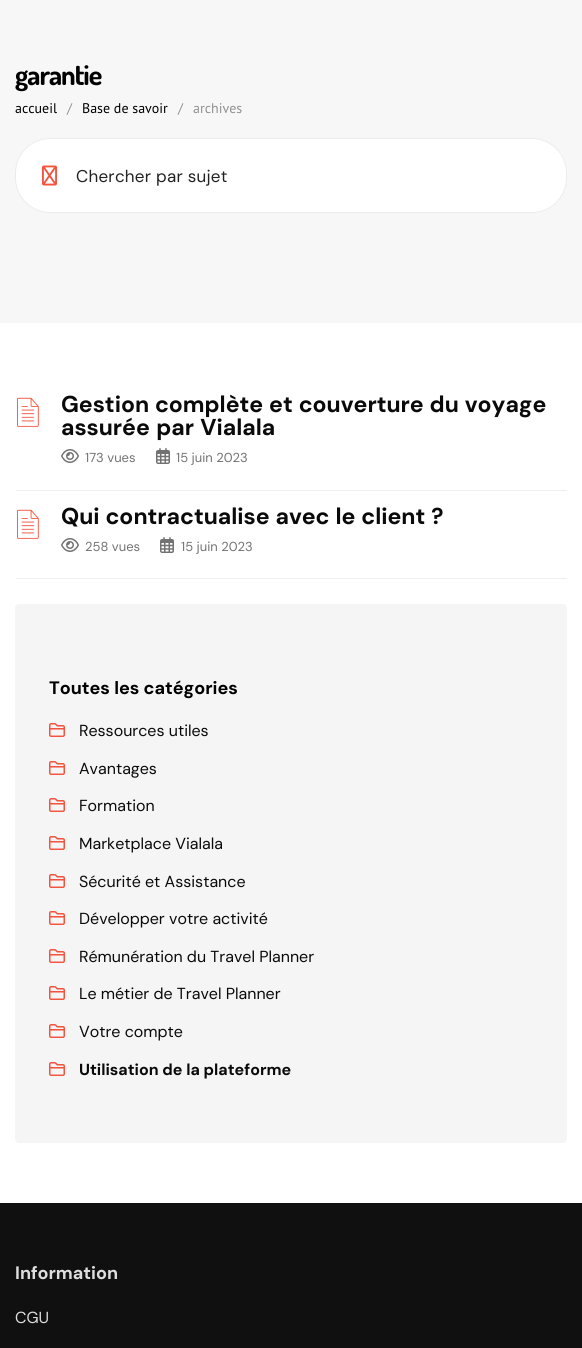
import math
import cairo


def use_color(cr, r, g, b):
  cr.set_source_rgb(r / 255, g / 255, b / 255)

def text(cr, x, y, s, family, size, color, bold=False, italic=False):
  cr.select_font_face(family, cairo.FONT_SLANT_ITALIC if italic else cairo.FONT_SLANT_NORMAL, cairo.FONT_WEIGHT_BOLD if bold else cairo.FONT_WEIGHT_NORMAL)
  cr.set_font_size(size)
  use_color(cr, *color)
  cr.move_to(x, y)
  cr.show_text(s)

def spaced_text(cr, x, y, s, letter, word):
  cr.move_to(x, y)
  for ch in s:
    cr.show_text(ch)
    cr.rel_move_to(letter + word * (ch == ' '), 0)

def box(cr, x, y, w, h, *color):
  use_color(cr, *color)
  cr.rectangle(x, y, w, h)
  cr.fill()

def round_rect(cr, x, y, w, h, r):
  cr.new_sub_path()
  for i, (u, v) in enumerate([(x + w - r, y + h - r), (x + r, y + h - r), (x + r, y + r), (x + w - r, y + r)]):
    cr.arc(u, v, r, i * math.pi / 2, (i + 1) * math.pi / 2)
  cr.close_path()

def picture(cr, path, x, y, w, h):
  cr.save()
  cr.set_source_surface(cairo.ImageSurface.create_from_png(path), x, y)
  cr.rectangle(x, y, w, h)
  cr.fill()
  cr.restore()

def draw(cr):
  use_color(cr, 255, 255, 255)
  cr.paint()
  box(cr, 0, 0, 582, 323, 247, 247, 247)
  use_color(cr, 255, 255, 255)
  round_rect(cr, 15, 138, 552, 75, 35)
  cr.fill()
  round_rect(cr, 15.5, 138.5, 551, 74, 34.5)
  cr.set_source_rgba(0.914, 0.914, 0.914, 0.9)
  cr.set_line_width(1)
  cr.stroke()
  picture(cr, "img_01.png", 42, 165, 15, 21)
  box(cr, 16, 490, 551, 1, 239, 239, 239)
  picture(cr, "img_02.png", 17, 397, 22, 30)
  picture(cr, "img_03.png", 61, 449, 18, 14)
  picture(cr, "img_04.png", 156, 448, 14, 16)
  box(cr, 16, 578, 551, 1, 239, 239, 239)
  picture(cr, "img_02.png", 17, 509, 22, 30)
  picture(cr, "img_03.png", 61, 538, 18, 14)
  picture(cr, "img_04.png", 160, 537, 14, 16)
  use_color(cr, 245, 245, 245)
  round_rect(cr, 15, 604, 552, 539, 4)
  cr.fill()
  picture(cr, "img_05.png", 49, 723, 16, 14)
  picture(cr, "img_05.png", 49, 761, 16, 14)
  picture(cr, "img_05.png", 49, 798, 16, 14)
  picture(cr, "img_05.png", 49, 836, 16, 14)
  picture(cr, "img_05.png", 49, 874, 16, 14)
  picture(cr, "img_05.png", 49, 911, 16, 14)
  picture(cr, "img_05.png", 49, 949, 16, 14)
  picture(cr, "img_05.png", 49, 986, 16, 14)
  picture(cr, "img_05.png", 49, 1024, 16, 14)
  picture(cr, "img_05.png", 49, 1062, 16, 14)
  box(cr, 0, 1203, 582, 145, 16, 16, 16)
  cr.select_font_face("Dosis", cairo.FONT_SLANT_NORMAL, cairo.FONT_WEIGHT_BOLD)
  cr.set_font_size(28)
  use_color(cr, 0, 0, 0)
  spaced_text(cr, 15, 85, "garantie", -1, 0)
  text(cr, 15, 113, "accueil", "PT Sans", 14, (0, 0, 0))
  text(cr, 67, 113, "/", "PT Sans", 14, (145, 145, 145))
  text(cr, 82, 113, "Base de savoir", "PT Sans", 14, (0, 0, 0))
  text(cr, 178, 113, "/", "PT Sans", 14, (145, 145, 145))
  text(cr, 193, 113, "archives", "PT Sans", 14, (145, 145, 145))
  cr.select_font_face("DM Sans")
  cr.set_font_size(17)
  use_color(cr, 34, 34, 34)
  spaced_text(cr, 76, 182, "Chercher par sujet", 0.25, 0)
  cr.select_font_face("DM Sans", cairo.FONT_SLANT_NORMAL, cairo.FONT_WEIGHT_BOLD)
  cr.set_font_size(23)
  use_color(cr, 10, 10, 10)
  spaced_text(cr, 61, 412, "Gestion complète et couverture du voyage", 0, 0.5)
  spaced_text(cr, 61, 435, "assurée par Vialala", 0, 1)
  text(cr, 85, 462, "173 vues", "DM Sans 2", 13, (114, 114, 114))
  text(cr, 176, 462, "15 juin 2023", "DM Sans 2", 13, (114, 114, 114))
  cr.select_font_face("DM Sans", cairo.FONT_SLANT_NORMAL, cairo.FONT_WEIGHT_BOLD)
  cr.set_font_size(23)
  use_color(cr, 10, 10, 10)
  spaced_text(cr, 61, 524, "Qui contractualise avec le client ?", 0, 0.5)
  text(cr, 85, 551, "258 vues", "DM Sans 2", 13, (114, 114, 114))
  text(cr, 181, 551, "15 juin 2023", "DM Sans 2", 13, (114, 114, 114))
  text(cr, 49, 694, "Toutes les catégories", "DM Sans 2", 18, (0, 0, 0), bold=True)
  text(cr, 79, 736, "Ressources utiles", "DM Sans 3", 16, (10, 10, 10))
  text(cr, 79, 774, "Avantages", "DM Sans 3", 16, (10, 10, 10))
  text(cr, 79, 811, "Formation", "DM Sans 3", 16, (10, 10, 10))
  text(cr, 79, 849, "Marketplace Vialala", "DM Sans 3", 16, (10, 10, 10))
  text(cr, 79, 887, "Sécurité et Assistance", "DM Sans 3", 16, (10, 10, 10))
  text(cr, 79, 924, "Développer votre activité", "DM Sans 3", 16, (10, 10, 10))
  text(cr, 79, 962, "Rémunération du Travel Planner", "DM Sans 3", 16, (10, 10, 10))
  text(cr, 79, 999, "Le métier de Travel Planner", "DM Sans 3", 16, (10, 10, 10))
  text(cr, 79, 1037, "Votre compte", "DM Sans 3", 16, (10, 10, 10))
  text(cr, 79, 1075, "Utilisation de la plateforme", "DM Sans 3", 16, (10, 10, 10), bold=True)
  text(cr, 15, 1279, "Information", "DM Sans 2", 18, (221, 221, 221), bold=True)
  text(cr, 15, 1323, "CGU", "DM Sans 3", 16, (221, 221, 221))


surface = cairo.ImageSurface(cairo.FORMAT_RGB24, 582, 1348)
cr = cairo.Context(surface)
options = cairo.FontOptions()
options.set_hint_metrics(cairo.HINT_METRICS_OFF)
options.set_hint_style(cairo.HINT_STYLE_NONE)
cr.set_font_options(options)
cr.set_miter_limit(4)
draw(cr)
surface.write_to_png("out.png")
